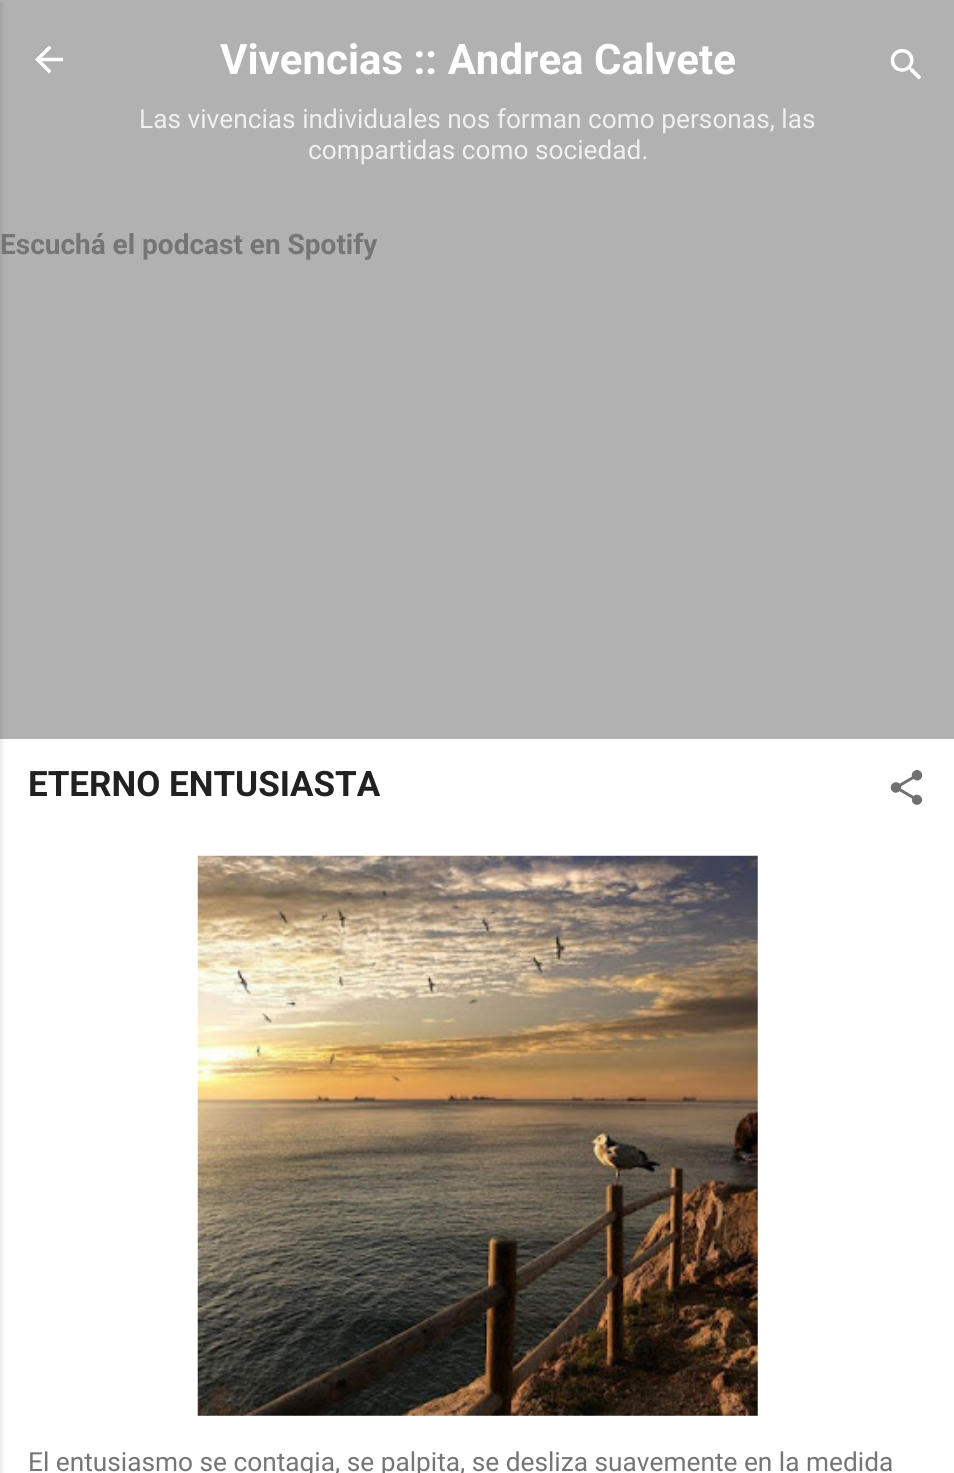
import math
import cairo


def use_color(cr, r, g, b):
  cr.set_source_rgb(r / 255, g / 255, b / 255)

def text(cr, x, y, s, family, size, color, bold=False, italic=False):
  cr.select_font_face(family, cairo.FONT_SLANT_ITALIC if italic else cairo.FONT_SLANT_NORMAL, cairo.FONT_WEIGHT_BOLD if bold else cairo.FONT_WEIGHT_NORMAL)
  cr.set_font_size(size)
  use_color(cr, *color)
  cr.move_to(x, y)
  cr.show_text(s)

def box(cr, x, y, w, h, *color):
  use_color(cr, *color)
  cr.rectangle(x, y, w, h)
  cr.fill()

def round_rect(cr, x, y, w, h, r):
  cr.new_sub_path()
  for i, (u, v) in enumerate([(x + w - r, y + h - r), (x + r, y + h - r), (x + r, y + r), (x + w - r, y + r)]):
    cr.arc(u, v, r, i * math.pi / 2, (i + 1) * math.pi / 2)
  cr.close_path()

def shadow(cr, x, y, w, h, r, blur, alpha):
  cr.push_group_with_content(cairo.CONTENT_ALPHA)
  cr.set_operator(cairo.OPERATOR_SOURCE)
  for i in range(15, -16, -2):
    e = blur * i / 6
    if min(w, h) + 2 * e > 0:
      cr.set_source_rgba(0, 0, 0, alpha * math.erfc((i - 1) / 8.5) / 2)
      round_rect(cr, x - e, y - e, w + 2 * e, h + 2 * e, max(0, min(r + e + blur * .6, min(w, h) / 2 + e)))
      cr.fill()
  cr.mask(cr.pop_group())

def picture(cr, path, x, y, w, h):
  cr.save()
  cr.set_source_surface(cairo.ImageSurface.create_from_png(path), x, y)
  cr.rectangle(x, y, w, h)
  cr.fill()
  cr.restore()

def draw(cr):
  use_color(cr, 177, 177, 177)
  cr.paint()
  box(cr, 0, 739, 954, 734, 255, 255, 255)
  use_color(cr, 0, 0, 0)
  shadow(cr, -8, 2, 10, 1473, 0, 2.5, 0.1)
  picture(cr, "img_01.png", 35, 45, 28, 29)
  picture(cr, "img_02.png", 890, 49, 32, 31)
  picture(cr, "img_03.png", 890, 770, 33, 35)
  picture(cr, "img_04.png", 197, 855, 561, 561)
  text(cr, 220, 74, "Vivencias :: Andrea Calvete", "Roboto", 42, (255, 255, 255), bold=True)
  text(cr, 139, 128, "Las vivencias individuales nos forman como personas, las", "Roboto", 26.25, (239, 239, 239))
  text(cr, 308, 159, "compartidas como sociedad.", "Roboto", 26.25, (239, 239, 239))
  text(cr, 0, 254, "Escuchá el podcast en Spotify", "Roboto", 28, (117, 117, 117), bold=True)
  text(cr, 28, 796, "ETERNO ENTUSIASTA", "Roboto", 35, (33, 33, 33), bold=True)
  text(cr, 28, 1471, "El entusiasmo se contagia, se palpita, se desliza suavemente en la medida", "Roboto", 26.25, (117, 117, 117))


surface = cairo.ImageSurface(cairo.FORMAT_RGB24, 954, 1473)
cr = cairo.Context(surface)
options = cairo.FontOptions()
options.set_hint_metrics(cairo.HINT_METRICS_OFF)
options.set_hint_style(cairo.HINT_STYLE_NONE)
cr.set_font_options(options)
cr.set_miter_limit(4)
draw(cr)
surface.write_to_png("out.png")
